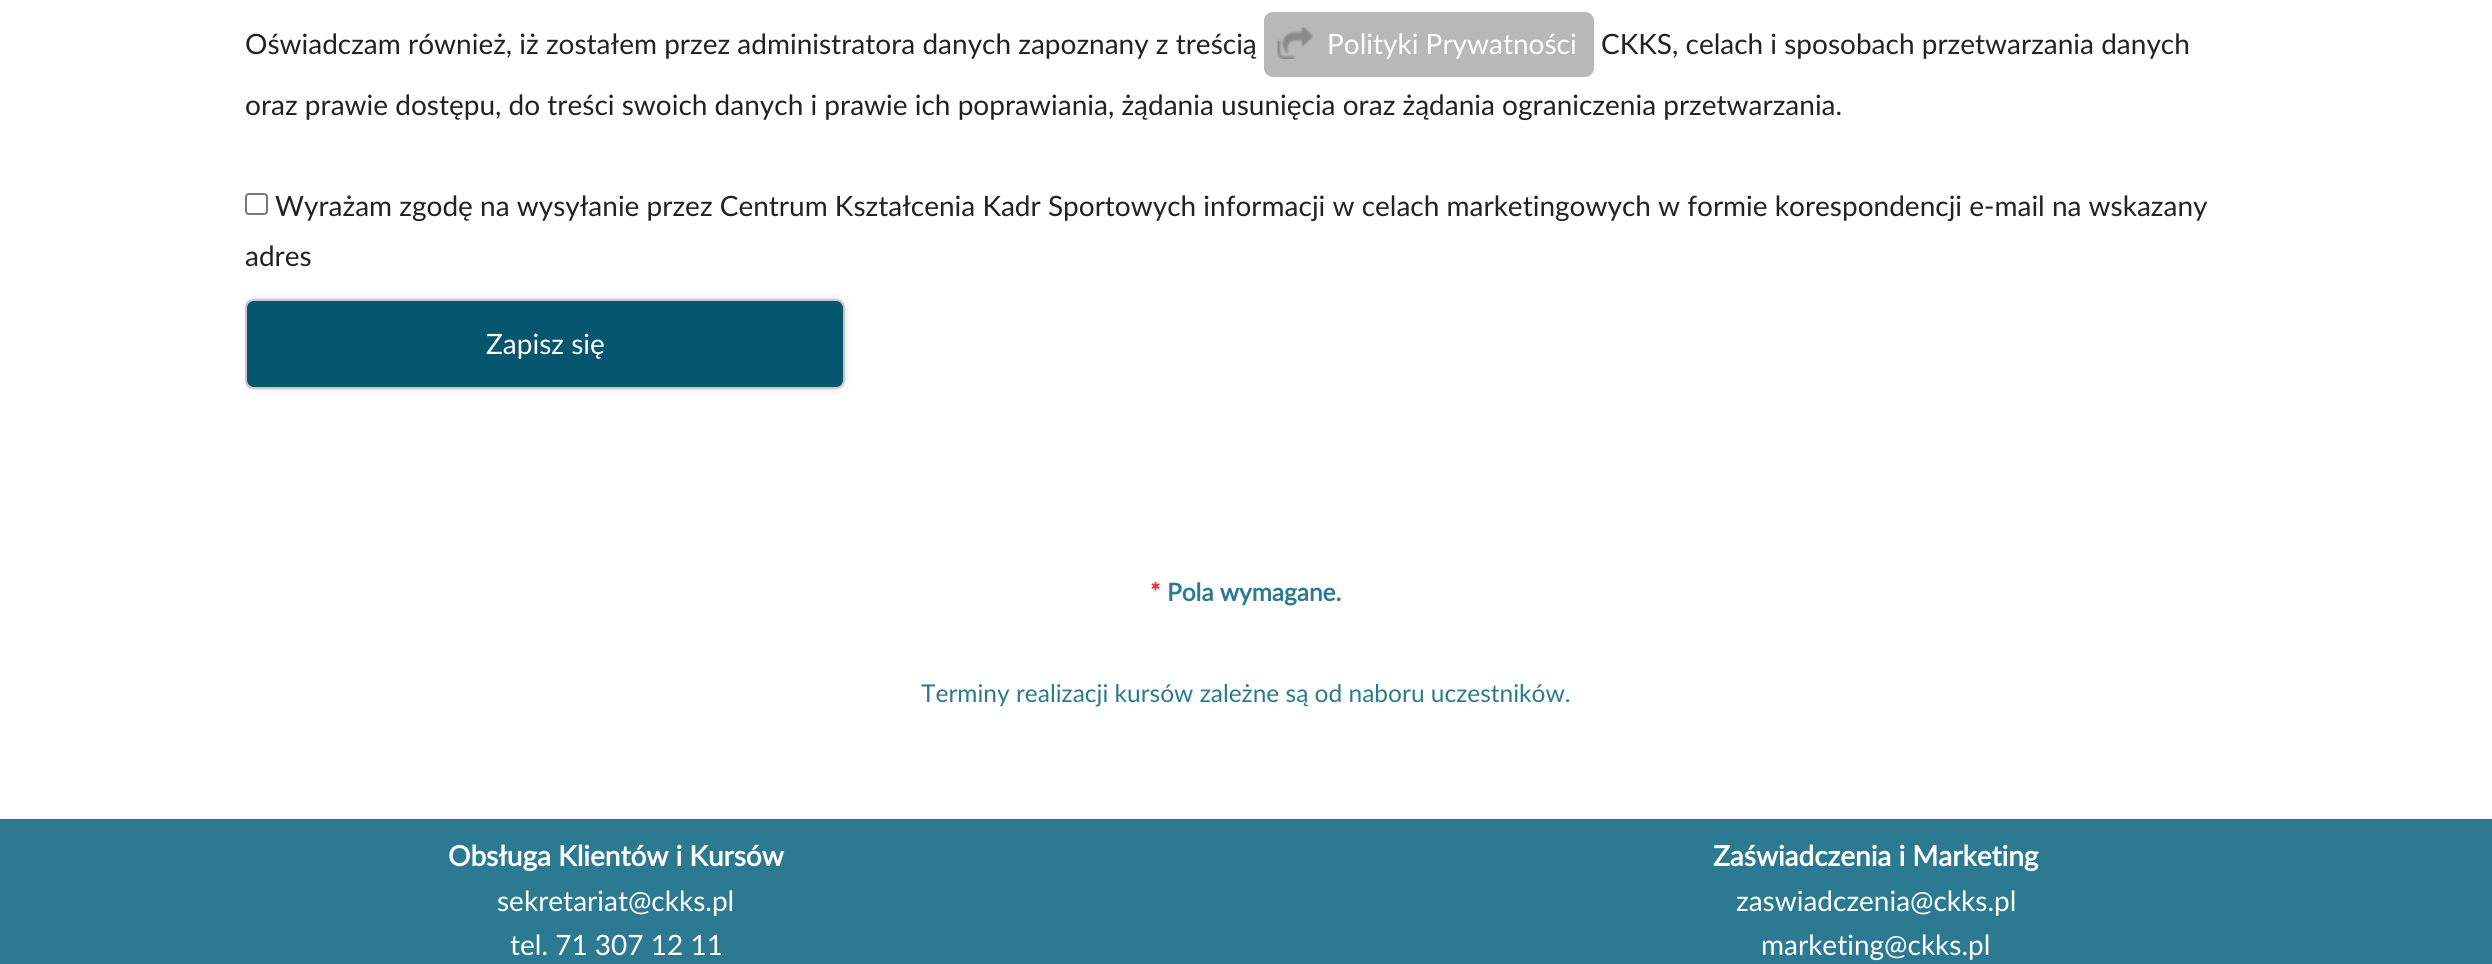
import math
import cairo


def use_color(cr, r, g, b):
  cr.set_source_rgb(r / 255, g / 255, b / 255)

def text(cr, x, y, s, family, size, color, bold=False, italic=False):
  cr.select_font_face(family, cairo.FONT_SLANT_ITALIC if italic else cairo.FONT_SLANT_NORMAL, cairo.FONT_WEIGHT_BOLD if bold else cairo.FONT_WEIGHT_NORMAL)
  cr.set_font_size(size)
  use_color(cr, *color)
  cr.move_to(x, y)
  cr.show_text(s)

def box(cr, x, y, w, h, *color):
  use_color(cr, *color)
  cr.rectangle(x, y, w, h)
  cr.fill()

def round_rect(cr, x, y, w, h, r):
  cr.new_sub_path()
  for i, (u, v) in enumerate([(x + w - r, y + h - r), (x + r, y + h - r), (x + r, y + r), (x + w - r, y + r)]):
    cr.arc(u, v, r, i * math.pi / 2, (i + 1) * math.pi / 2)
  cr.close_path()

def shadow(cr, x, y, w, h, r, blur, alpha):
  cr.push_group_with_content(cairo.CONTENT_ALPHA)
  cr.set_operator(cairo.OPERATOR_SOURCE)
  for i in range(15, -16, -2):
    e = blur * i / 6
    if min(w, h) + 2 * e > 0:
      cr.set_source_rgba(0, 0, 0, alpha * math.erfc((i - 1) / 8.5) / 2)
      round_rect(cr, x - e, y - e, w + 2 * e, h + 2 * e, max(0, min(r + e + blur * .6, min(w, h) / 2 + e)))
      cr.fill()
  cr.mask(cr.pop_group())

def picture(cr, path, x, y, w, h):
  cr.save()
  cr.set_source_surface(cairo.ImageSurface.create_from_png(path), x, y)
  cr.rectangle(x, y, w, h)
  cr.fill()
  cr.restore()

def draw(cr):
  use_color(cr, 255, 255, 255)
  cr.paint()
  use_color(cr, 184, 184, 184)
  round_rect(cr, 1264, 12, 330, 65, 9)
  cr.fill()
  picture(cr, "img_01.png", 1277, 27, 36, 32)
  round_rect(cr, 246, 194, 21, 20, 3)
  use_color(cr, 118, 118, 118)
  cr.stroke()
  cr.save()
  cr.rectangle(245, 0, 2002, 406)
  cr.clip()
  use_color(cr, 50, 50, 50)
  shadow(cr, 245, 299, 600, 90, 9, 3.5, 0.2)
  cr.restore()
  use_color(cr, 5, 86, 110)
  round_rect(cr, 246, 300, 598, 88, 8)
  cr.fill_preserve()
  use_color(cr, 199, 199, 199)
  cr.stroke()
  box(cr, 0, 819, 2492, 145, 44, 122, 145)
  text(cr, 245, 54, "Oświadczam również, iż zostałem przez administratora danych zapoznany z treścią", "Lato", 28, (34, 34, 34))
  text(cr, 1327, 54, "Polityki Prywatności", "Lato", 28, (255, 255, 255))
  text(cr, 1601, 54, "CKKS, celach i sposobach przetwarzania danych", "Lato", 28, (34, 34, 34))
  text(cr, 245, 115, "oraz prawie dostępu, do treści swoich danych i prawie ich poprawiania, żądania usunięcia oraz żądania ograniczenia przetwarzania.", "Lato", 28, (34, 34, 34))
  text(cr, 275, 216, "Wyrażam zgodę na wysyłanie przez Centrum Kształcenia Kadr Sportowych informacji w celach marketingowych w formie korespondencji e-mail na wskazany", "Lato", 28, (34, 34, 34))
  text(cr, 245, 266, "adres", "Lato", 28, (34, 34, 34))
  text(cr, 486, 354, "Zapisz się", "Lato", 28, (255, 255, 255))
  text(cr, 1150, 601, "*", "Lato", 24.5, (220, 53, 69), bold=True)
  text(cr, 1167, 601, "Pola wymagane.", "Lato", 24.5, (44, 122, 145), bold=True)
  text(cr, 921, 702, "Terminy realizacji kursów zależne są od naboru uczestników.", "Lato", 24.5, (44, 122, 145))
  text(cr, 448, 866, "Obsługa Klientów i Kursów", "Lato", 28, (255, 255, 255), bold=True)
  text(cr, 497, 911, "sekretariat@ckks.pl", "Lato", 28, (255, 255, 255))
  text(cr, 510, 955, "tel. 71 307 12 11", "Lato", 28, (255, 255, 255))
  text(cr, 1713, 866, "Zaświadczenia i Marketing", "Lato", 28, (255, 255, 255), bold=True)
  text(cr, 1736, 911, "zaswiadczenia@ckks.pl", "Lato", 28, (255, 255, 255))
  text(cr, 1761, 955, "marketing@ckks.pl", "Lato", 28, (255, 255, 255))


surface = cairo.ImageSurface(cairo.FORMAT_RGB24, 2492, 964)
cr = cairo.Context(surface)
options = cairo.FontOptions()
options.set_hint_metrics(cairo.HINT_METRICS_OFF)
options.set_hint_style(cairo.HINT_STYLE_NONE)
cr.set_font_options(options)
cr.set_miter_limit(4)
draw(cr)
surface.write_to_png("out.png")
